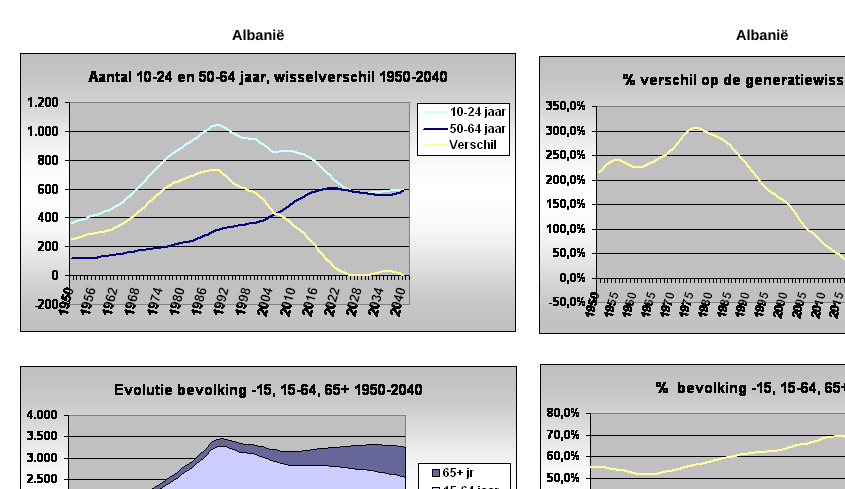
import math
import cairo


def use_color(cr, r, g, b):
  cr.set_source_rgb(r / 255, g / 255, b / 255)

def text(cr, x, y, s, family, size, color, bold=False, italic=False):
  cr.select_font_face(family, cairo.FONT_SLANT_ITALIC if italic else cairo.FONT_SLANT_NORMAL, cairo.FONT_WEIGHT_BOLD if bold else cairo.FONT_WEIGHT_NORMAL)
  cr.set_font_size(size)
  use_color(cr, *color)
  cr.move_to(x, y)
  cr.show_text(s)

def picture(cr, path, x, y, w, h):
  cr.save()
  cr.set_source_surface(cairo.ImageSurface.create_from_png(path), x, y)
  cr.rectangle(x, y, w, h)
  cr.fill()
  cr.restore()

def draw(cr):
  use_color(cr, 255, 255, 255)
  cr.paint()
  picture(cr, "img_01.png", 20, 53, 496, 279)
  picture(cr, "img_02.png", 539, 56, 306, 278)
  picture(cr, "img_03.png", 20, 366, 497, 123)
  picture(cr, "img_04.png", 540, 364, 305, 125)
  text(cr, 232, 40, "Albanië", "Liberation Sans", 14.5, (0, 0, 0), bold=True)
  text(cr, 736, 40, "Albanië", "Liberation Sans", 14.5, (0, 0, 0), bold=True)


surface = cairo.ImageSurface(cairo.FORMAT_RGB24, 845, 489)
cr = cairo.Context(surface)
options = cairo.FontOptions()
options.set_hint_metrics(cairo.HINT_METRICS_OFF)
options.set_hint_style(cairo.HINT_STYLE_NONE)
cr.set_font_options(options)
cr.set_miter_limit(4)
draw(cr)
surface.write_to_png("out.png")
